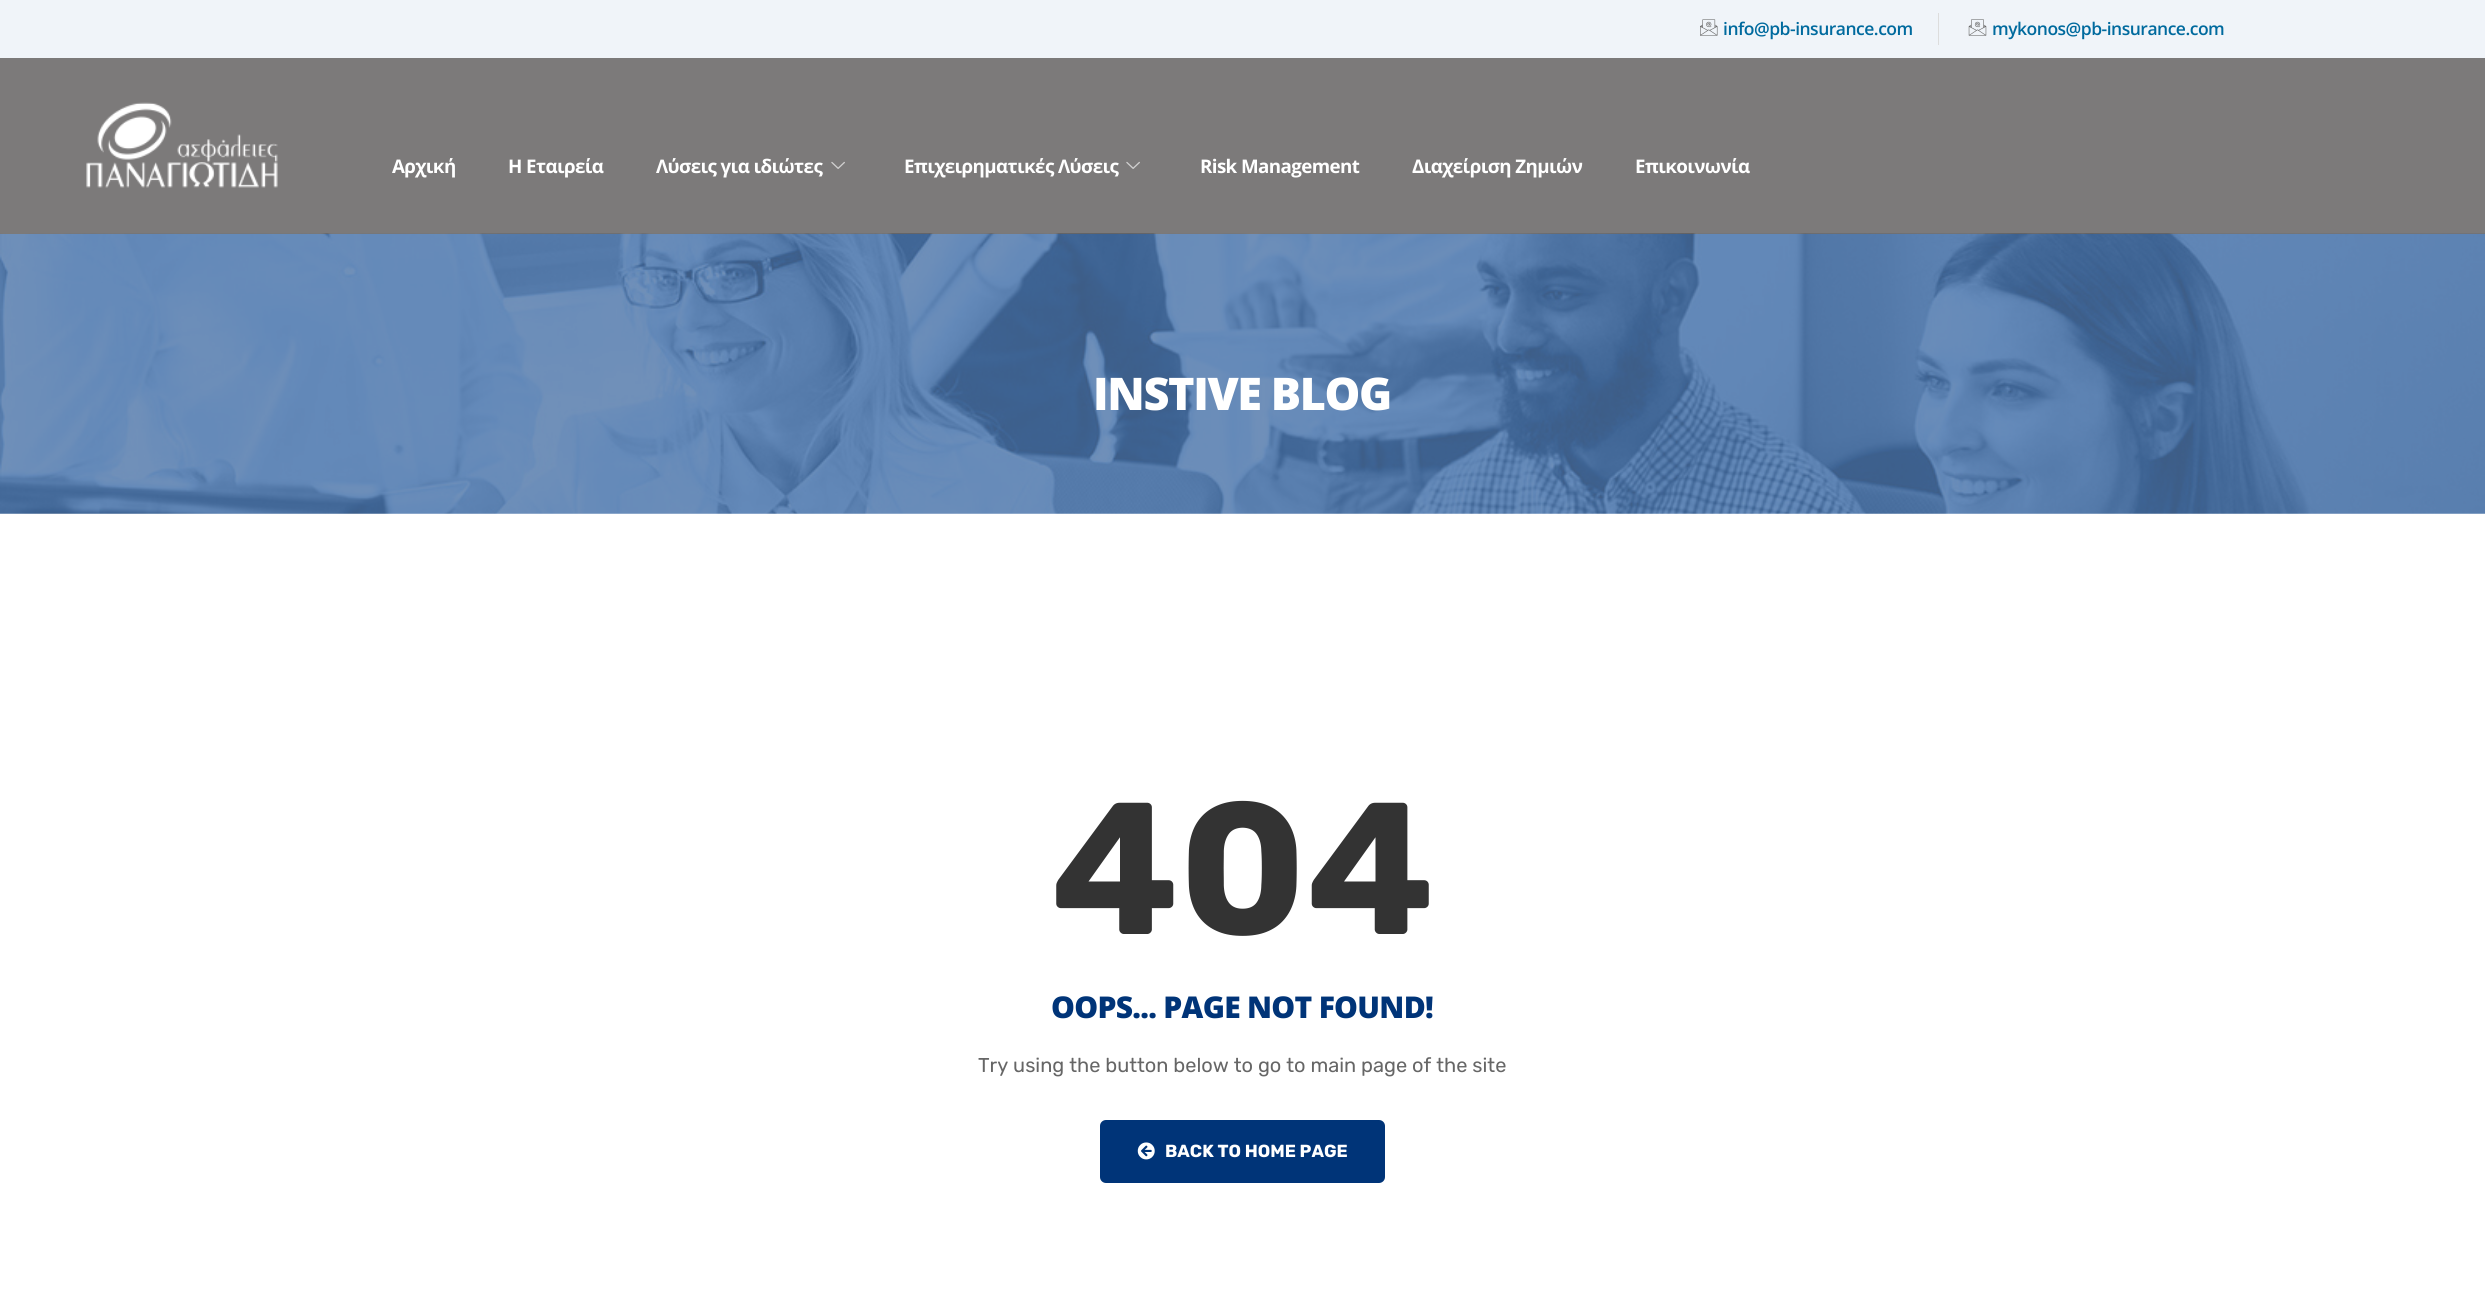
import math
import cairo


def use_color(cr, r, g, b):
  cr.set_source_rgb(r / 255, g / 255, b / 255)

def text(cr, x, y, s, family, size, color, bold=False, italic=False):
  cr.select_font_face(family, cairo.FONT_SLANT_ITALIC if italic else cairo.FONT_SLANT_NORMAL, cairo.FONT_WEIGHT_BOLD if bold else cairo.FONT_WEIGHT_NORMAL)
  cr.set_font_size(size)
  use_color(cr, *color)
  cr.move_to(x, y)
  cr.show_text(s)

def spaced_text(cr, x, y, s, letter, word):
  cr.move_to(x, y)
  for ch in s:
    cr.show_text(ch)
    cr.rel_move_to(letter + word * (ch == ' '), 0)

def box(cr, x, y, w, h, *color):
  use_color(cr, *color)
  cr.rectangle(x, y, w, h)
  cr.fill()

def round_rect(cr, x, y, w, h, r):
  cr.new_sub_path()
  for i, (u, v) in enumerate([(x + w - r, y + h - r), (x + r, y + h - r), (x + r, y + r), (x + w - r, y + r)]):
    cr.arc(u, v, r, i * math.pi / 2, (i + 1) * math.pi / 2)
  cr.close_path()

def picture(cr, path, x, y, w, h):
  cr.save()
  cr.set_source_surface(cairo.ImageSurface.create_from_png(path), x, y)
  cr.rectangle(x, y, w, h)
  cr.fill()
  cr.restore()

def draw(cr):
  use_color(cr, 255, 255, 255)
  cr.paint()
  box(cr, 0, 0, 2485, 58, 240, 244, 249)
  picture(cr, "img_01.png", 1700, 19, 18, 17)
  box(cr, 1938, 13, 1, 32, 221, 221, 221)
  picture(cr, "img_02.png", 1968, 19, 19, 17)
  picture(cr, "img_05.png", 0, 233, 2485, 281)
  cr.set_source_rgba(0.133, 0.122, 0.122, 0.59)
  cr.rectangle(0, 58, 2485, 176)
  cr.fill()
  picture(cr, "img_03.png", 86, 102, 192, 86)
  picture(cr, "img_04.png", 831, 161, 14, 8)
  picture(cr, "img_04.png", 1126, 161, 14, 8)
  use_color(cr, 0, 52, 120)
  round_rect(cr, 1100, 1120, 285, 63, 6)
  cr.fill()
  picture(cr, "img_06.png", 1137, 1142, 18, 18)
  cr.select_font_face("Open Sans SemiBold")
  cr.set_font_size(17.5)
  use_color(cr, 0, 106, 158)
  spaced_text(cr, 1723, 35, "info@pb-insurance.com", -0.5, 0)
  spaced_text(cr, 1992, 35, "mykonos@pb-insurance.com", -0.5, 0)
  cr.select_font_face("Open Sans", cairo.FONT_SLANT_NORMAL, cairo.FONT_WEIGHT_BOLD)
  cr.set_font_size(18.75)
  use_color(cr, 255, 255, 255)
  spaced_text(cr, 392, 173, "Αρχική", -0.6, 0)
  spaced_text(cr, 508, 173, "Η Εταιρεία", -0.6, 0)
  spaced_text(cr, 656, 173, "Λύσεις για ιδιώτες", -0.6, 0)
  spaced_text(cr, 904, 173, "Επιχειρηματικές Λύσεις", -0.6, 0)
  spaced_text(cr, 1200, 173, "Risk Management", -0.6, 0)
  spaced_text(cr, 1412, 173, "Διαχείριση Ζημιών", -0.6, 0)
  spaced_text(cr, 1635, 173, "Επικοινωνία", -0.6, 0)
  cr.select_font_face("Open Sans ExtraBold")
  cr.set_font_size(45)
  spaced_text(cr, 1093, 410, "INSTIVE BLOG", -1.4, 0)
  text(cr, 1051, 934, "404", "Rubik", 187.5, (51, 51, 51), bold=True)
  cr.select_font_face("Open Sans ExtraBold")
  cr.set_font_size(30)
  use_color(cr, 0, 52, 120)
  spaced_text(cr, 1051, 1018, "OOPS... PAGE NOT FOUND!", -0.7, 0)
  text(cr, 978, 1072, "Try using the button below to go to main page of the site", "Rubik", 20, (102, 102, 102))
  text(cr, 1165, 1157, "BACK TO HOME PAGE", "Rubik", 17.5, (255, 255, 255), bold=True)


surface = cairo.ImageSurface(cairo.FORMAT_RGB24, 2485, 1292)
cr = cairo.Context(surface)
options = cairo.FontOptions()
options.set_hint_metrics(cairo.HINT_METRICS_OFF)
options.set_hint_style(cairo.HINT_STYLE_NONE)
cr.set_font_options(options)
cr.set_miter_limit(4)
draw(cr)
surface.write_to_png("out.png")
